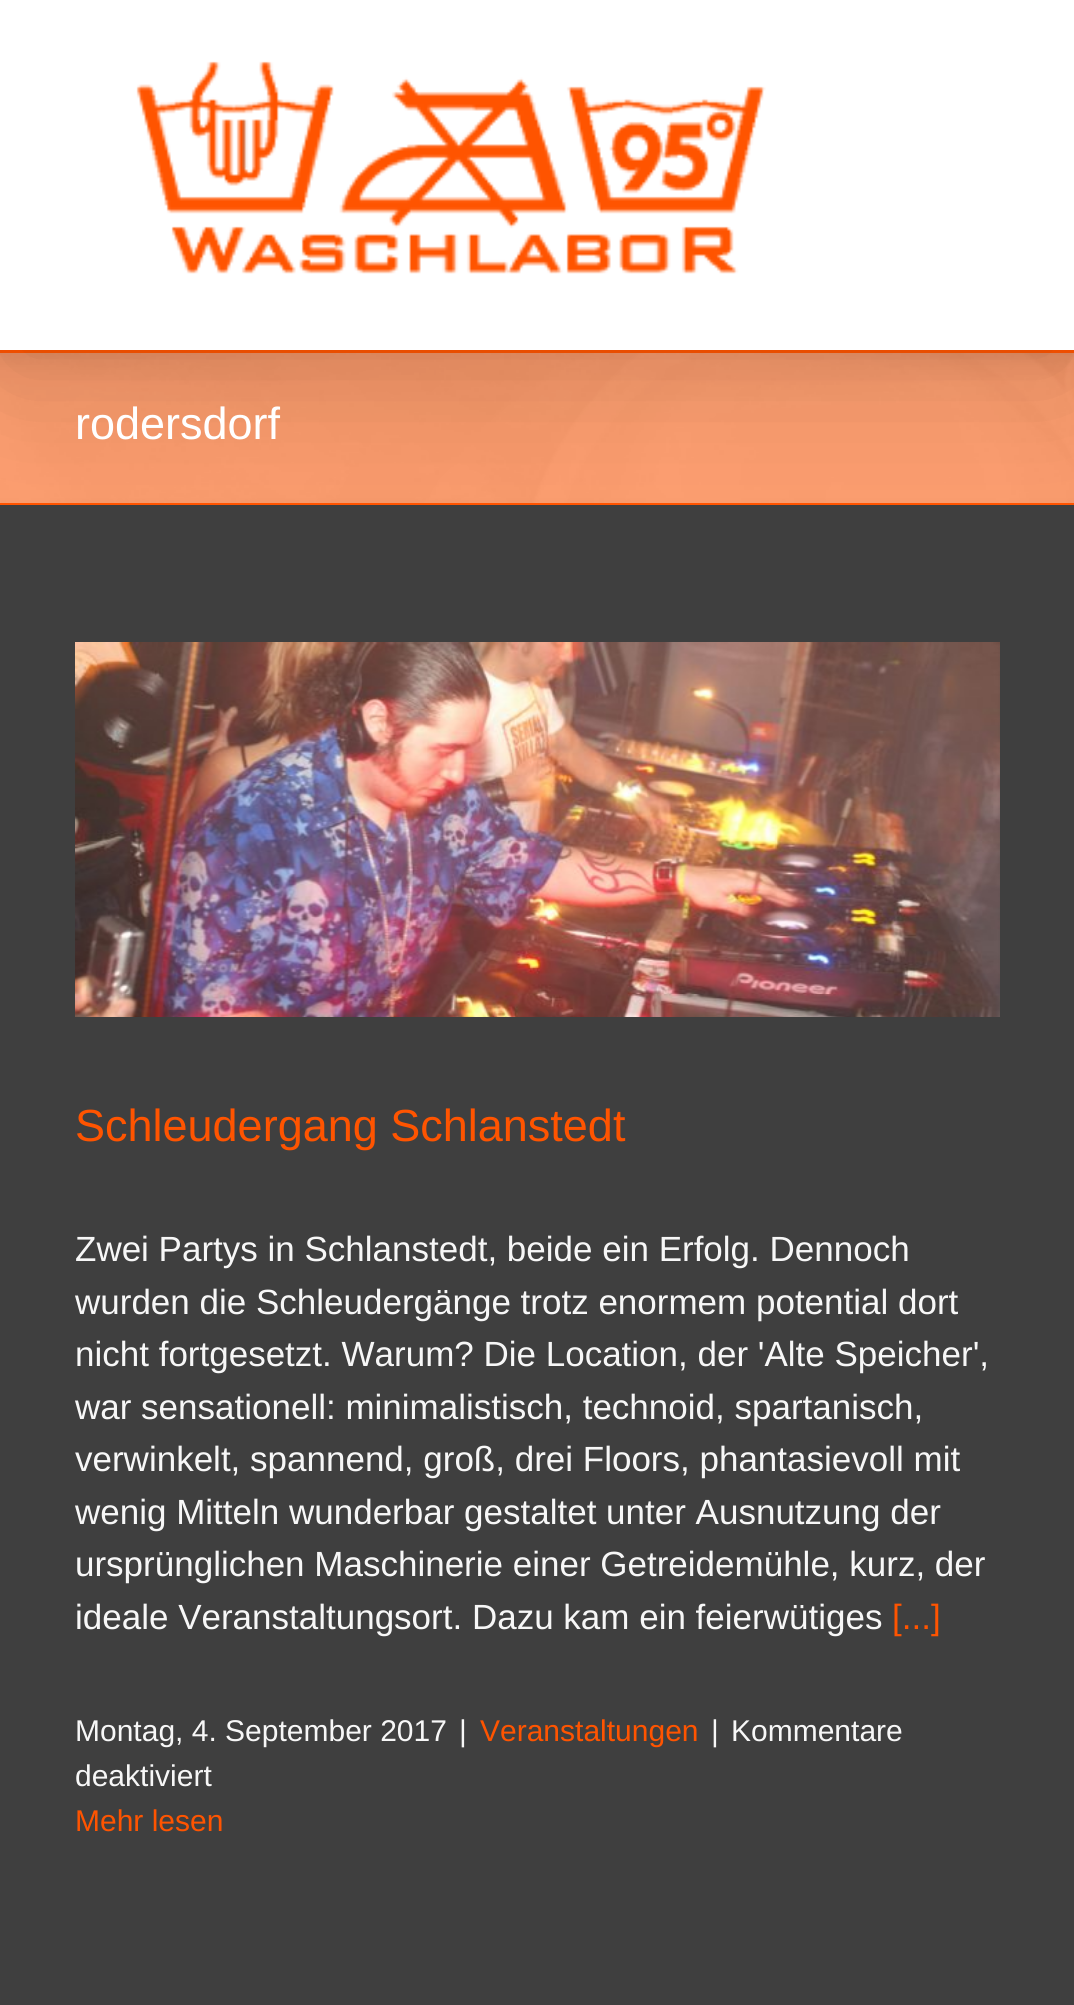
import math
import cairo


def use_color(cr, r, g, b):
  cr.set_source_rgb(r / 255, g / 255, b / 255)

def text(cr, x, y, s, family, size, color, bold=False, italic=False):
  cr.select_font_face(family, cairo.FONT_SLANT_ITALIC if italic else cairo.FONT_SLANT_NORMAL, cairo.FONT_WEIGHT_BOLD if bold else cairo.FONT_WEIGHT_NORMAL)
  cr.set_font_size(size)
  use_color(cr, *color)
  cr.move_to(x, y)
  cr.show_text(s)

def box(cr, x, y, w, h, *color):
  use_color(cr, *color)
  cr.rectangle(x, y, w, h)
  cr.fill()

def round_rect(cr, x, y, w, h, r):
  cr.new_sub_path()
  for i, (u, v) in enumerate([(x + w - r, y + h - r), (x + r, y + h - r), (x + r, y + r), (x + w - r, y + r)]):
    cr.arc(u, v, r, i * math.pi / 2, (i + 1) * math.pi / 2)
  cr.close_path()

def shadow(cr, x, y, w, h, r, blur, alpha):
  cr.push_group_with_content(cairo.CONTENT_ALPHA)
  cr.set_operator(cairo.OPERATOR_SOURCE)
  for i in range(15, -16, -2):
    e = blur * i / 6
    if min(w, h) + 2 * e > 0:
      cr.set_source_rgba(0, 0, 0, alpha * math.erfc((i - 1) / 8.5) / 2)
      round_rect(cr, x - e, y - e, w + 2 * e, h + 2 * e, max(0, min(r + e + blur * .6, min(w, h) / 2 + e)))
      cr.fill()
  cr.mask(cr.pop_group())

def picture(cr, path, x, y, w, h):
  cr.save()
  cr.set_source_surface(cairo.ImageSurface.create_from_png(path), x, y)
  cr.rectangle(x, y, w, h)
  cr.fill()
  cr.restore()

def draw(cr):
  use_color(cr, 255, 84, 0)
  cr.paint()
  picture(cr, "img_02.png", 0, 353, 1074, 150)
  box(cr, 0, 505, 1074, 1500, 63, 63, 63)
  use_color(cr, 0, 0, 0)
  shadow(cr, 5, 30, 1065, 340, 0, 62.5, 0.14)
  box(cr, 0, 0, 1074, 350, 255, 255, 255)
  picture(cr, "img_01.png", 136, 61, 630, 213)
  picture(cr, "img_03.png", 75, 642, 925, 375)
  text(cr, 75, 439, "rodersdorf", "Liberation Sans", 45, (255, 255, 255))
  text(cr, 75, 1141, "Schleudergang Schlanstedt", "Liberation Sans", 45, (255, 84, 0))
  text(cr, 75, 1261, "Zwei Partys in Schlanstedt, beide ein Erfolg. Dennoch", "Liberation Sans", 35, (247, 247, 247))
  text(cr, 75, 1314, "wurden die Schleudergänge trotz enormem potential dort", "Liberation Sans", 35, (247, 247, 247))
  text(cr, 75, 1366, "nicht fortgesetzt. Warum? Die Location, der 'Alte Speicher',", "Liberation Sans", 35, (247, 247, 247))
  text(cr, 75, 1419, "war sensationell: minimalistisch, technoid, spartanisch,", "Liberation Sans", 35, (247, 247, 247))
  text(cr, 75, 1471, "verwinkelt, spannend, groß, drei Floors, phantasievoll mit", "Liberation Sans", 35, (247, 247, 247))
  text(cr, 75, 1524, "wenig Mitteln wunderbar gestaltet unter Ausnutzung der", "Liberation Sans", 35, (247, 247, 247))
  text(cr, 75, 1576, "ursprünglichen Maschinerie einer Getreidemühle, kurz, der", "Liberation Sans", 35, (247, 247, 247))
  text(cr, 75, 1629, "ideale Veranstaltungsort. Dazu kam ein feierwütiges", "Liberation Sans", 35, (247, 247, 247))
  text(cr, 892, 1629, "[...]", "Liberation Sans", 35, (255, 84, 0))
  text(cr, 75, 1741, "Montag, 4. September 2017", "Liberation Sans", 30, (247, 247, 247))
  text(cr, 459, 1741, "|", "Liberation Sans", 30, (247, 247, 247))
  text(cr, 480, 1741, "Veranstaltungen", "Liberation Sans", 30, (255, 84, 0))
  text(cr, 711, 1741, "|", "Liberation Sans", 30, (247, 247, 247))
  text(cr, 731, 1741, "Kommentare", "Liberation Sans", 30, (247, 247, 247))
  text(cr, 75, 1786, "deaktiviert", "Liberation Sans", 30, (247, 247, 247))
  text(cr, 75, 1831, "Mehr lesen", "Liberation Sans", 30, (255, 84, 0))


surface = cairo.ImageSurface(cairo.FORMAT_RGB24, 1074, 2005)
cr = cairo.Context(surface)
options = cairo.FontOptions()
options.set_hint_metrics(cairo.HINT_METRICS_OFF)
options.set_hint_style(cairo.HINT_STYLE_NONE)
cr.set_font_options(options)
cr.set_miter_limit(4)
draw(cr)
surface.write_to_png("out.png")
